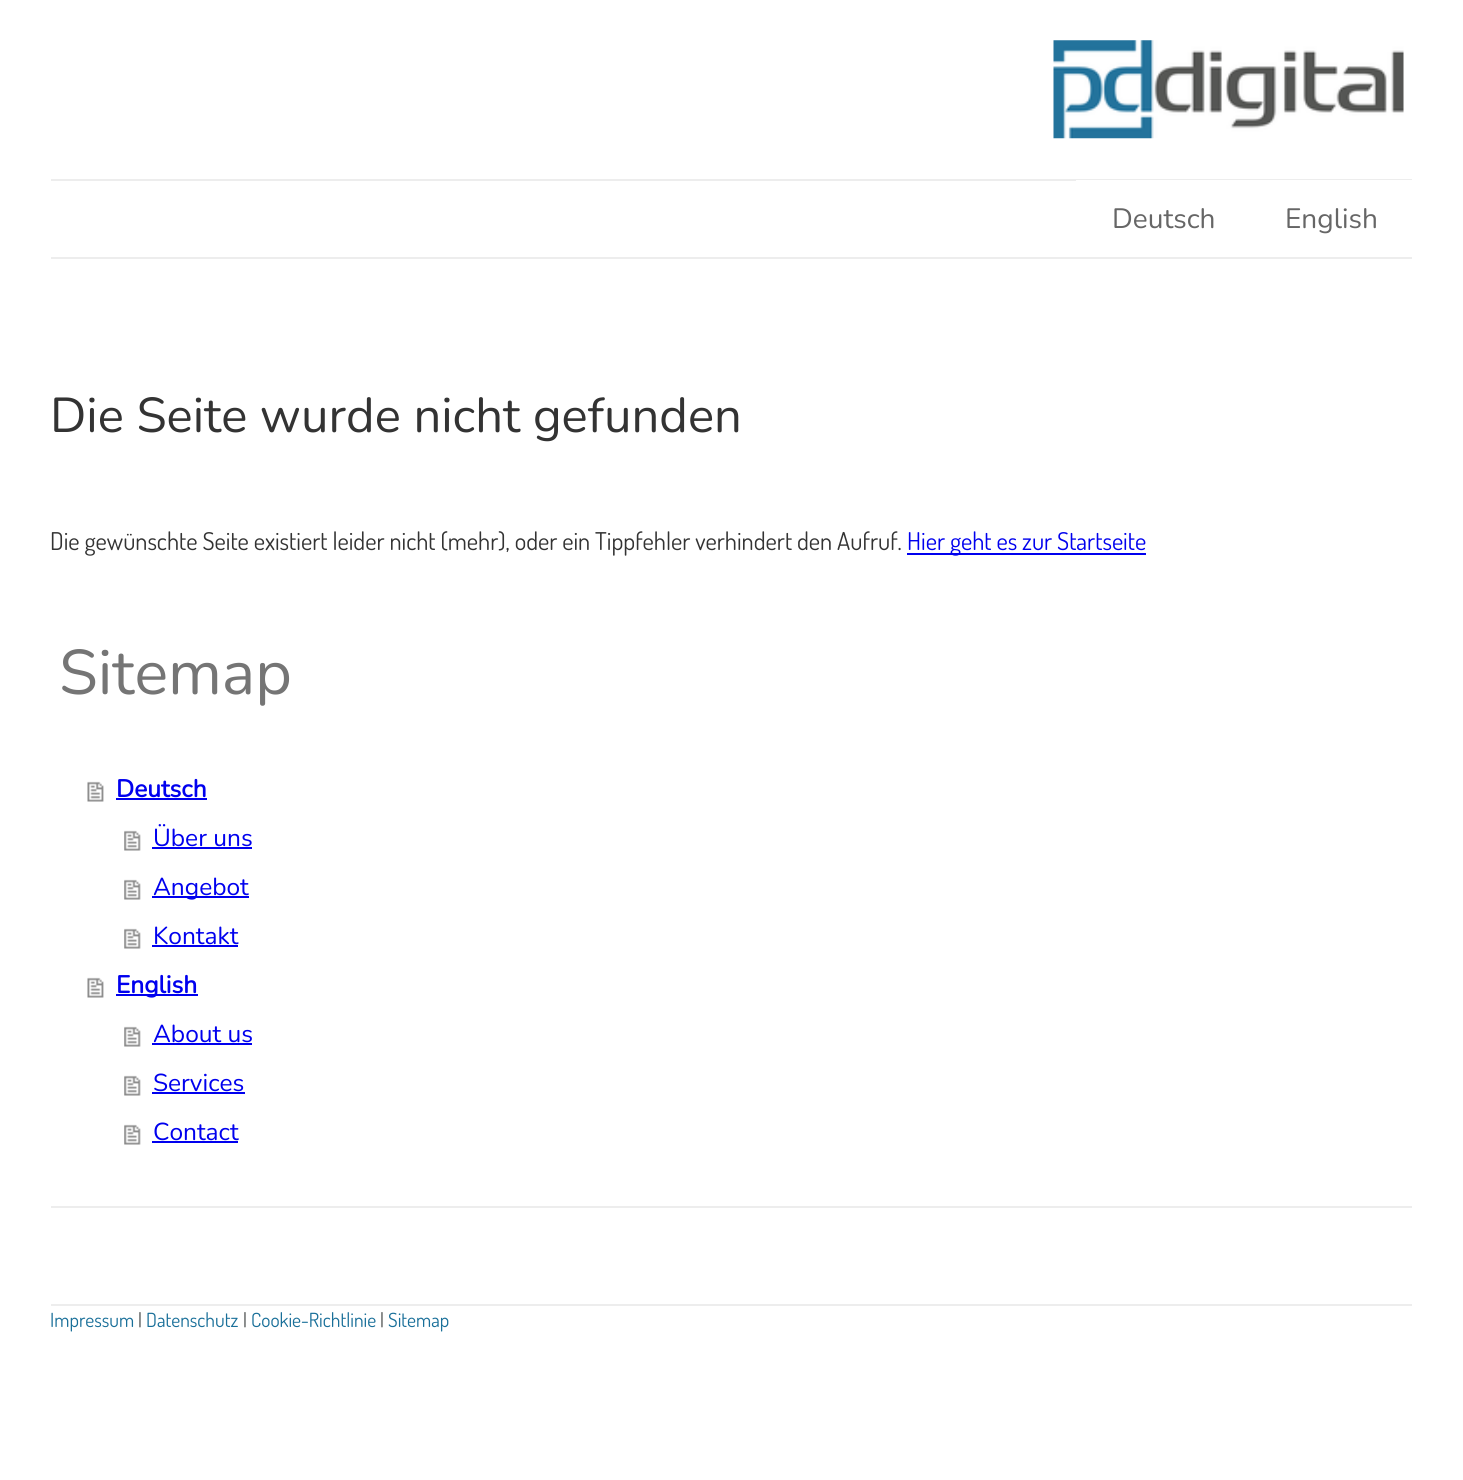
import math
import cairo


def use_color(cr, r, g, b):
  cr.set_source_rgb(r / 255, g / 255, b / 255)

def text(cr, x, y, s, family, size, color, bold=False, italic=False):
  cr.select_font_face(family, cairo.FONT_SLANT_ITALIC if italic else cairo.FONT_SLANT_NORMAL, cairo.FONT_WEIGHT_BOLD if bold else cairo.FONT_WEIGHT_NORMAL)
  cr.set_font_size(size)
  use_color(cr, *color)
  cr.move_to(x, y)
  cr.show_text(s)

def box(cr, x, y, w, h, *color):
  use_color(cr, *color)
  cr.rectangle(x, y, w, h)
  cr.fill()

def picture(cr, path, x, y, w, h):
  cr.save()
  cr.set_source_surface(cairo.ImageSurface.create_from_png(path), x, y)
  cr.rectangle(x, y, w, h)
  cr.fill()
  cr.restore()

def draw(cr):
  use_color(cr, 255, 255, 255)
  cr.paint()
  picture(cr, "img_01.png", 1053, 40, 351, 99)
  box(cr, 51, 179, 1361, 2, 237, 237, 237)
  box(cr, 51, 257, 1361, 2, 237, 237, 237)
  box(cr, 1076, 180, 336, 1, 255, 255, 255)
  box(cr, 907, 553, 239, 2, 0, 0, 238)
  picture(cr, "img_02.png", 87, 781, 17, 21)
  box(cr, 116, 798, 91, 2, 0, 0, 238)
  picture(cr, "img_03.png", 124, 830, 17, 21)
  box(cr, 152, 847, 100, 2, 0, 0, 238)
  picture(cr, "img_03.png", 124, 879, 17, 21)
  box(cr, 152, 896, 97, 2, 0, 0, 238)
  picture(cr, "img_03.png", 124, 928, 17, 21)
  box(cr, 152, 945, 86, 2, 0, 0, 238)
  picture(cr, "img_02.png", 87, 977, 17, 21)
  box(cr, 116, 994, 82, 2, 0, 0, 238)
  picture(cr, "img_03.png", 124, 1026, 17, 21)
  box(cr, 152, 1043, 100, 2, 0, 0, 238)
  picture(cr, "img_03.png", 124, 1075, 17, 21)
  box(cr, 152, 1092, 93, 2, 0, 0, 238)
  picture(cr, "img_03.png", 124, 1124, 17, 21)
  box(cr, 152, 1141, 86, 2, 0, 0, 238)
  box(cr, 51, 1206, 1361, 2, 237, 237, 237)
  box(cr, 51, 1304, 1361, 2, 237, 237, 237)
  text(cr, 1112, 228, "Deutsch", "Nunito ExtraLight", 28, (102, 102, 102))
  text(cr, 1285, 228, "English", "Nunito ExtraLight", 28, (102, 102, 102))
  text(cr, 50, 432, "Die Seite wurde nicht gefunden", "Nunito ExtraLight", 49, (51, 51, 51))
  text(cr, 50, 550, "Die gewünschte Seite existiert leider nicht (mehr), oder ein Tippfehler verhindert den Aufruf.", "Dosis", 24.5, (51, 51, 51))
  text(cr, 907, 550, "Hier geht es zur Startseite", "Dosis", 24.5, (0, 0, 238))
  text(cr, 59, 694, "Sitemap", "Nunito ExtraLight", 63, (117, 117, 117))
  text(cr, 116, 797, "Deutsch", "Nunito", 24.5, (0, 0, 238), bold=True)
  text(cr, 153, 846, "Über uns", "Nunito ExtraLight", 24.5, (0, 0, 238))
  text(cr, 153, 895, "Angebot", "Nunito ExtraLight", 24.5, (0, 0, 238))
  text(cr, 153, 944, "Kontakt", "Nunito ExtraLight", 24.5, (0, 0, 238))
  text(cr, 116, 993, "English", "Nunito", 24.5, (0, 0, 238), bold=True)
  text(cr, 153, 1042, "About us", "Nunito ExtraLight", 24.5, (0, 0, 238))
  text(cr, 153, 1091, "Services", "Nunito ExtraLight", 24.5, (0, 0, 238))
  text(cr, 153, 1140, "Contact", "Nunito ExtraLight", 24.5, (0, 0, 238))
  text(cr, 50, 1327, "Impressum", "Dosis", 19.5, (25, 111, 153))
  text(cr, 138, 1327, "|", "Dosis", 19.5, (79, 82, 82))
  text(cr, 146, 1327, "Datenschutz", "Dosis", 19.5, (25, 111, 153))
  text(cr, 243, 1327, "|", "Dosis", 19.5, (79, 82, 82))
  text(cr, 251, 1327, "Cookie-Richtlinie", "Dosis", 19.5, (25, 111, 153))
  text(cr, 380, 1327, "|", "Dosis", 19.5, (79, 82, 82))
  text(cr, 388, 1327, "Sitemap", "Dosis", 19.5, (25, 111, 153))


surface = cairo.ImageSurface(cairo.FORMAT_RGB24, 1463, 1480)
cr = cairo.Context(surface)
options = cairo.FontOptions()
options.set_hint_metrics(cairo.HINT_METRICS_OFF)
options.set_hint_style(cairo.HINT_STYLE_NONE)
cr.set_font_options(options)
cr.set_miter_limit(4)
draw(cr)
surface.write_to_png("out.png")
